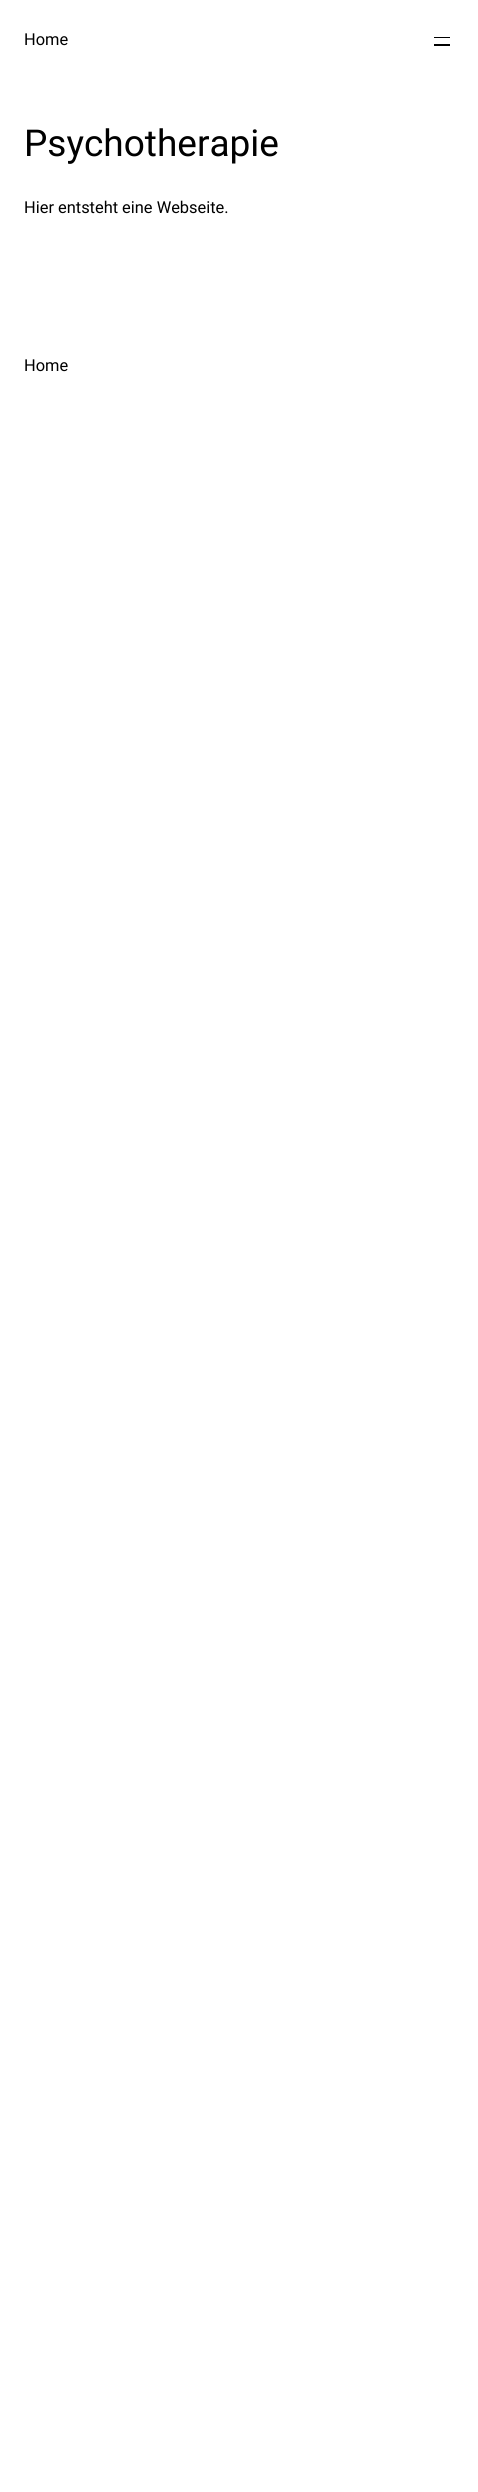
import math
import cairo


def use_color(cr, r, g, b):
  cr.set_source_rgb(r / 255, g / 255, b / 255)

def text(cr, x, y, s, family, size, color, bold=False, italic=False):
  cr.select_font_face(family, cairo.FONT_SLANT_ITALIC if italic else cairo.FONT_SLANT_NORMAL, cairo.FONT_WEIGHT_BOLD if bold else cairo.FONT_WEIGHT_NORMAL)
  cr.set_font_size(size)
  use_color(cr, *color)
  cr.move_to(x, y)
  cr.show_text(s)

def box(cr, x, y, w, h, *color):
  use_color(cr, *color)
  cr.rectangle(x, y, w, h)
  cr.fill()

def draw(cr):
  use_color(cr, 255, 255, 255)
  cr.paint()
  box(cr, 434, 37, 16, 1, 0, 0, 0)
  box(cr, 434, 44, 16, 2, 0, 0, 0)
  text(cr, 24, 45, "Home", "Roboto", 16.4, (0, 0, 0))
  text(cr, 24, 156, "Psychotherapie", "Roboto", 37, (0, 0, 0))
  text(cr, 24, 213, "Hier entsteht eine Webseite.", "Roboto", 16.4, (0, 0, 0))
  text(cr, 24, 371, "Home", "Roboto", 16.4, (0, 0, 0))


surface = cairo.ImageSurface(cairo.FORMAT_RGB24, 478, 2492)
cr = cairo.Context(surface)
options = cairo.FontOptions()
options.set_hint_metrics(cairo.HINT_METRICS_OFF)
options.set_hint_style(cairo.HINT_STYLE_NONE)
cr.set_font_options(options)
cr.set_miter_limit(4)
draw(cr)
surface.write_to_png("out.png")
